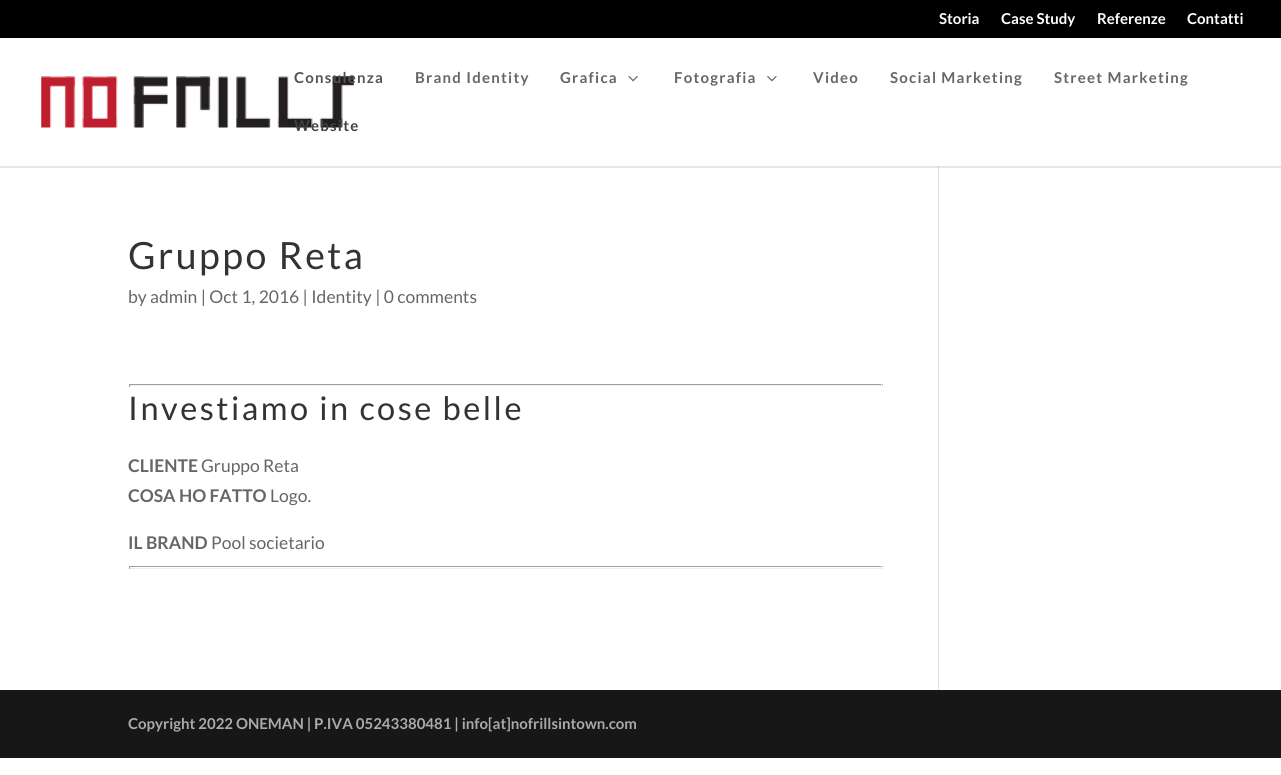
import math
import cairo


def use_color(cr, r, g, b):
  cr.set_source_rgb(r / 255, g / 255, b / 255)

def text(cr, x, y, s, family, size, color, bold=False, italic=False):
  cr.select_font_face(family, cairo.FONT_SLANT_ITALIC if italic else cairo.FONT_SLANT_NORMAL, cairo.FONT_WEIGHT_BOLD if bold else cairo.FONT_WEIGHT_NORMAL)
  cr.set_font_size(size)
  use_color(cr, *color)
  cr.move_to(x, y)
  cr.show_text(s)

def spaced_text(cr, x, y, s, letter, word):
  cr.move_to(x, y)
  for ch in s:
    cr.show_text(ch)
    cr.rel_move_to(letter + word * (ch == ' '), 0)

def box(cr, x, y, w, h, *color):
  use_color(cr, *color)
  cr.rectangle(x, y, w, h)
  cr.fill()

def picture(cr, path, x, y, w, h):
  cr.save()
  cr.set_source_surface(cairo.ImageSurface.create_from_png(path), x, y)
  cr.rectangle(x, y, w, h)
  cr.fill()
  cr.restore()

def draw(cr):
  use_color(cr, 255, 255, 255)
  cr.paint()
  box(cr, 0, 166, 1281, 2, 230, 230, 230)
  box(cr, 0, 0, 1281, 38, 0, 0, 0)
  picture(cr, "img_01.png", 41, 76, 313, 52)
  picture(cr, "img_02.png", 628, 76, 10, 6)
  picture(cr, "img_03.png", 767, 76, 10, 6)
  box(cr, 129, 384, 754, 1, 159, 159, 159)
  box(cr, 881, 384, 1, 3, 238, 238, 238)
  box(cr, 129, 385, 754, 1, 238, 238, 238)
  box(cr, 129, 384, 1, 3, 159, 159, 159)
  box(cr, 129, 566, 754, 1, 159, 159, 159)
  box(cr, 881, 566, 1, 3, 238, 238, 238)
  box(cr, 129, 568, 754, 1, 238, 238, 238)
  box(cr, 129, 566, 1, 3, 159, 159, 159)
  box(cr, 938, 166, 1, 524, 226, 226, 226)
  box(cr, 938, 166, 1, 2, 203, 203, 203)
  box(cr, 0, 690, 1281, 68, 23, 23, 23)
  text(cr, 939, 24, "Storia", "Lato", 15, (255, 255, 255), bold=True)
  text(cr, 1001, 24, "Case Study", "Lato", 15, (255, 255, 255), bold=True)
  text(cr, 1097, 24, "Referenze", "Lato", 15, (255, 255, 255), bold=True)
  text(cr, 1187, 24, "Contatti", "Lato", 15, (255, 255, 255), bold=True)
  use_color(cr, 84, 84, 84)
  spaced_text(cr, 294, 83, "Consulenza", 1.25, 0)
  use_color(cr, 102, 102, 102)
  spaced_text(cr, 415, 83, "Brand Identity", 1.25, 0)
  spaced_text(cr, 560, 83, "Grafica", 1.25, 0)
  spaced_text(cr, 674, 83, "Fotografia", 1.25, 0)
  spaced_text(cr, 813, 83, "Video", 1.25, 0)
  spaced_text(cr, 890, 83, "Social Marketing", 1.25, 0)
  spaced_text(cr, 1054, 83, "Street Marketing", 1.25, 0)
  use_color(cr, 66, 65, 65)
  spaced_text(cr, 294, 131, "Website", 1.25, 0)
  cr.select_font_face("Lato")
  cr.set_font_size(37.5)
  use_color(cr, 51, 51, 51)
  spaced_text(cr, 128, 269, "Gruppo Reta", 2.5, 0)
  text(cr, 128, 303, "by admin | Oct 1, 2016 | Identity | 0 comments", "Lato", 17.5, (102, 102, 102))
  cr.set_font_size(32.5)
  use_color(cr, 51, 51, 51)
  spaced_text(cr, 128, 420, "Investiamo in cose belle", 2.5, 0)
  text(cr, 128, 472, "CLIENTE", "Lato", 17.5, (102, 102, 102), bold=True)
  text(cr, 201, 472, "Gruppo Reta", "Lato", 17.5, (102, 102, 102))
  text(cr, 128, 502, "COSA HO FATTO", "Lato", 17.5, (102, 102, 102), bold=True)
  text(cr, 270, 502, "Logo.", "Lato", 17.5, (102, 102, 102))
  text(cr, 128, 549, "IL BRAND", "Lato", 17.5, (102, 102, 102), bold=True)
  text(cr, 211, 549, "Pool societario", "Lato", 17.5, (102, 102, 102))
  text(cr, 128, 729, "Copyright 2022 ONEMAN | P.IVA 05243380481 | info[at]nofrillsintown.com", "Lato", 15, (170, 170, 170), bold=True)


surface = cairo.ImageSurface(cairo.FORMAT_RGB24, 1281, 775)
cr = cairo.Context(surface)
options = cairo.FontOptions()
options.set_hint_metrics(cairo.HINT_METRICS_OFF)
options.set_hint_style(cairo.HINT_STYLE_NONE)
cr.set_font_options(options)
cr.set_miter_limit(4)
draw(cr)
surface.write_to_png("out.png")
